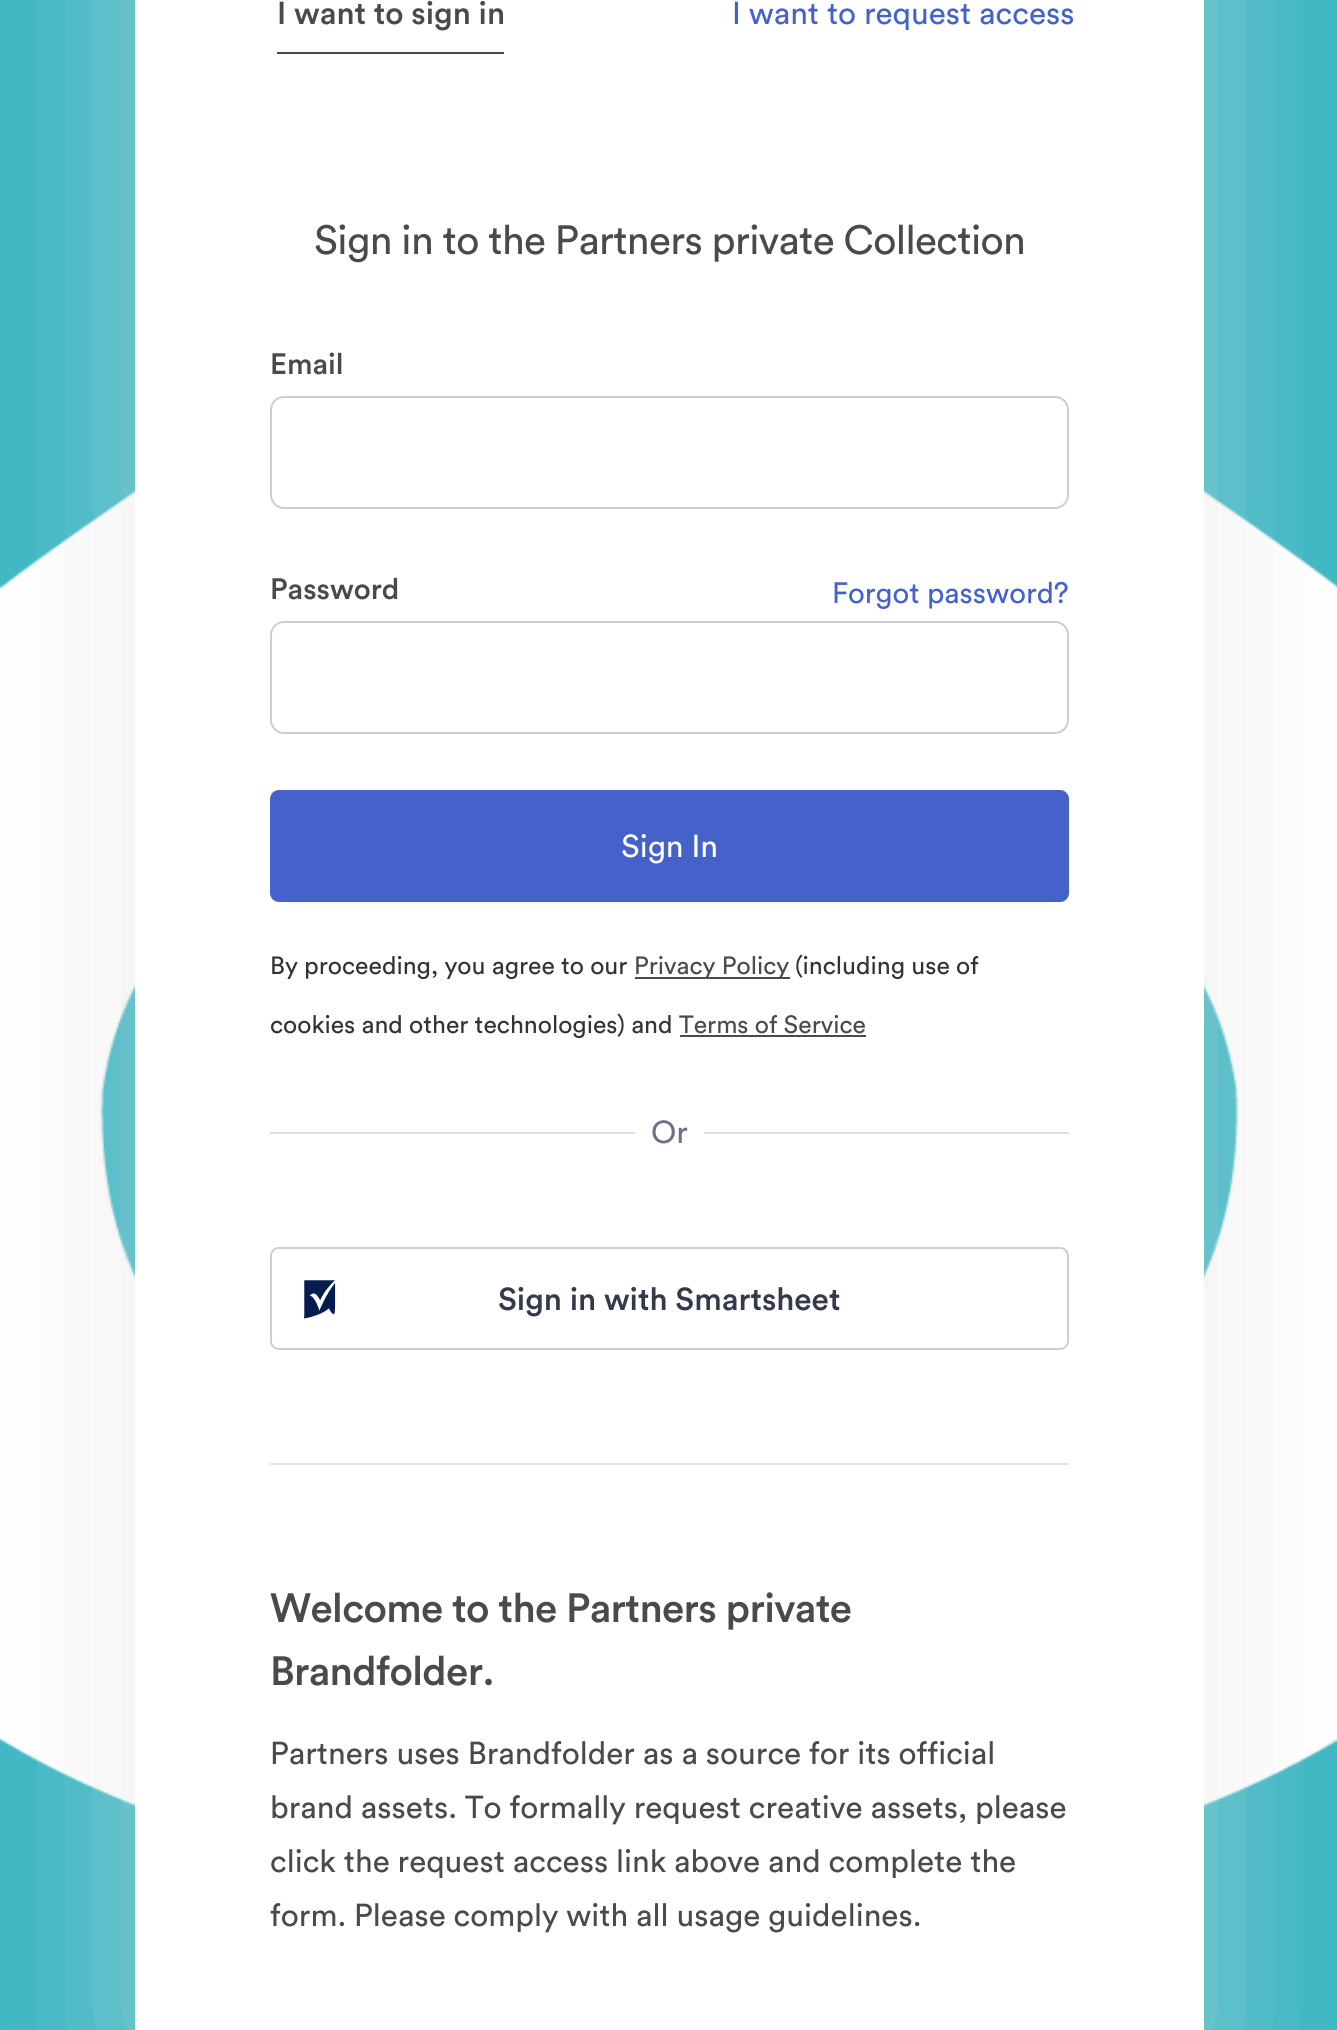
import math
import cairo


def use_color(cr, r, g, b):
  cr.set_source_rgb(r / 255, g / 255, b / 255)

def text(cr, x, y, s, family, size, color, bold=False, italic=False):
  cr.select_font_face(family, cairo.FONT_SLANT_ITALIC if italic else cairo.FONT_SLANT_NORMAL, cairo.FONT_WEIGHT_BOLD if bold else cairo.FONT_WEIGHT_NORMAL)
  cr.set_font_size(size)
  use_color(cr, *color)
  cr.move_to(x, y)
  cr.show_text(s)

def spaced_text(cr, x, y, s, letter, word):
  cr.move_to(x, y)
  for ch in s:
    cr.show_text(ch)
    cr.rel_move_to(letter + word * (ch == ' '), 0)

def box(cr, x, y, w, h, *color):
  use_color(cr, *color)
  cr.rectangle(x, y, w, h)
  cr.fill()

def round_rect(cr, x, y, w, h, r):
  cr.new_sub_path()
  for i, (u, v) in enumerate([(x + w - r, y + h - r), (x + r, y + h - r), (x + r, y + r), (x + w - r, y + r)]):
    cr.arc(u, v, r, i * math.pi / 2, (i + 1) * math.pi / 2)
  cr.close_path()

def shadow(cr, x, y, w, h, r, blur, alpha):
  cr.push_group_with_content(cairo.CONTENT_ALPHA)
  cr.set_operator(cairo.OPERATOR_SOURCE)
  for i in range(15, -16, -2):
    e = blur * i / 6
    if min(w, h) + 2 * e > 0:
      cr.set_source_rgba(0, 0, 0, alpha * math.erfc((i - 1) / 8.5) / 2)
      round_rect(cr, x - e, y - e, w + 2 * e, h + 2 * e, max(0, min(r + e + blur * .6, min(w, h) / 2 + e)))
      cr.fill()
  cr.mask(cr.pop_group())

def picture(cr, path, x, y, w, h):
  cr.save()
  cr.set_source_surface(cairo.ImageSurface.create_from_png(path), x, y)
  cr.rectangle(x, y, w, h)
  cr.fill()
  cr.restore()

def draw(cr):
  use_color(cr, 255, 255, 255)
  cr.paint()
  picture(cr, "img_01.png", 0, 0, 1337, 2030)
  use_color(cr, 221, 221, 221)
  shadow(cr, 135, -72, 1069, 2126, 0, 84.5, 0.55)
  box(cr, 135, 0, 1069, 97, 255, 255, 255)
  box(cr, 277, 52, 227, 2, 74, 74, 74)
  box(cr, 135, 97, 1069, 1933, 255, 255, 255)
  round_rect(cr, 271, 397, 797, 111, 13)
  use_color(cr, 206, 206, 206)
  cr.stroke()
  round_rect(cr, 271, 622, 797, 111, 13)
  cr.stroke()
  use_color(cr, 68, 98, 201)
  round_rect(cr, 270, 790, 799, 112, 9)
  cr.fill()
  box(cr, 635, 977, 155, 2, 74, 74, 74)
  box(cr, 680, 1035, 186, 2, 74, 74, 74)
  box(cr, 270, 1132, 365, 2, 220, 222, 229)
  box(cr, 704, 1132, 365, 2, 220, 222, 229)
  round_rect(cr, 271, 1248, 797, 101, 8)
  use_color(cr, 206, 206, 206)
  cr.stroke()
  picture(cr, "img_02.png", 304, 1280, 32, 39)
  box(cr, 270, 1463, 799, 2, 230, 230, 230)
  text(cr, 277, 24, "I want to sign in", "Circular Medium", 31.5, (74, 74, 74))
  text(cr, 732, 24, "I want to request access", "Circular", 31.5, (68, 98, 201))
  cr.set_font_size(40.5)
  use_color(cr, 74, 74, 74)
  spaced_text(cr, 314, 254, "Sign in to the Partners private Collection", -0.65, 0)
  text(cr, 270, 374, "Email", "Circular Medium", 29.25, (74, 74, 74))
  text(cr, 270, 599, "Password", "Circular Medium", 29.25, (74, 74, 74))
  text(cr, 832, 603, "Forgot password?", "Circular", 29.25, (68, 98, 201))
  text(cr, 621, 857, "Sign In", "Circular", 31.5, (255, 255, 255))
  text(cr, 270, 974, "By proceeding, you agree to our", "Circular", 24.75, (51, 51, 51))
  text(cr, 634, 974, "Privacy Policy", "Circular", 24.75, (74, 74, 74))
  text(cr, 795, 974, "(including use of", "Circular", 24.75, (51, 51, 51))
  text(cr, 270, 1033, "cookies and other technologies) and", "Circular", 24.75, (51, 51, 51))
  text(cr, 679, 1033, "Terms of Service", "Circular", 24.75, (74, 74, 74))
  text(cr, 651, 1143, "Or", "Circular", 31.5, (108, 113, 130))
  text(cr, 498, 1310, "Sign in with Smartsheet", "Circular Medium", 31.5, (53, 58, 74))
  cr.set_font_size(40.5)
  use_color(cr, 74, 74, 74)
  spaced_text(cr, 270, 1622, "Welcome to the Partners private", -0.65, 0)
  spaced_text(cr, 270, 1685, "Brandfolder.", -0.65, 0)
  text(cr, 270, 1764, "Partners uses Brandfolder as a source for its official", "Circular", 31.5, (74, 74, 74))
  text(cr, 270, 1818, "brand assets. To formally request creative assets, please", "Circular", 31.5, (74, 74, 74))
  text(cr, 270, 1872, "click the request access link above and complete the", "Circular", 31.5, (74, 74, 74))
  text(cr, 270, 1926, "form. Please comply with all usage guidelines.", "Circular", 31.5, (74, 74, 74))


surface = cairo.ImageSurface(cairo.FORMAT_RGB24, 1337, 2030)
cr = cairo.Context(surface)
options = cairo.FontOptions()
options.set_hint_metrics(cairo.HINT_METRICS_OFF)
options.set_hint_style(cairo.HINT_STYLE_NONE)
cr.set_font_options(options)
cr.set_miter_limit(4)
draw(cr)
surface.write_to_png("out.png")
